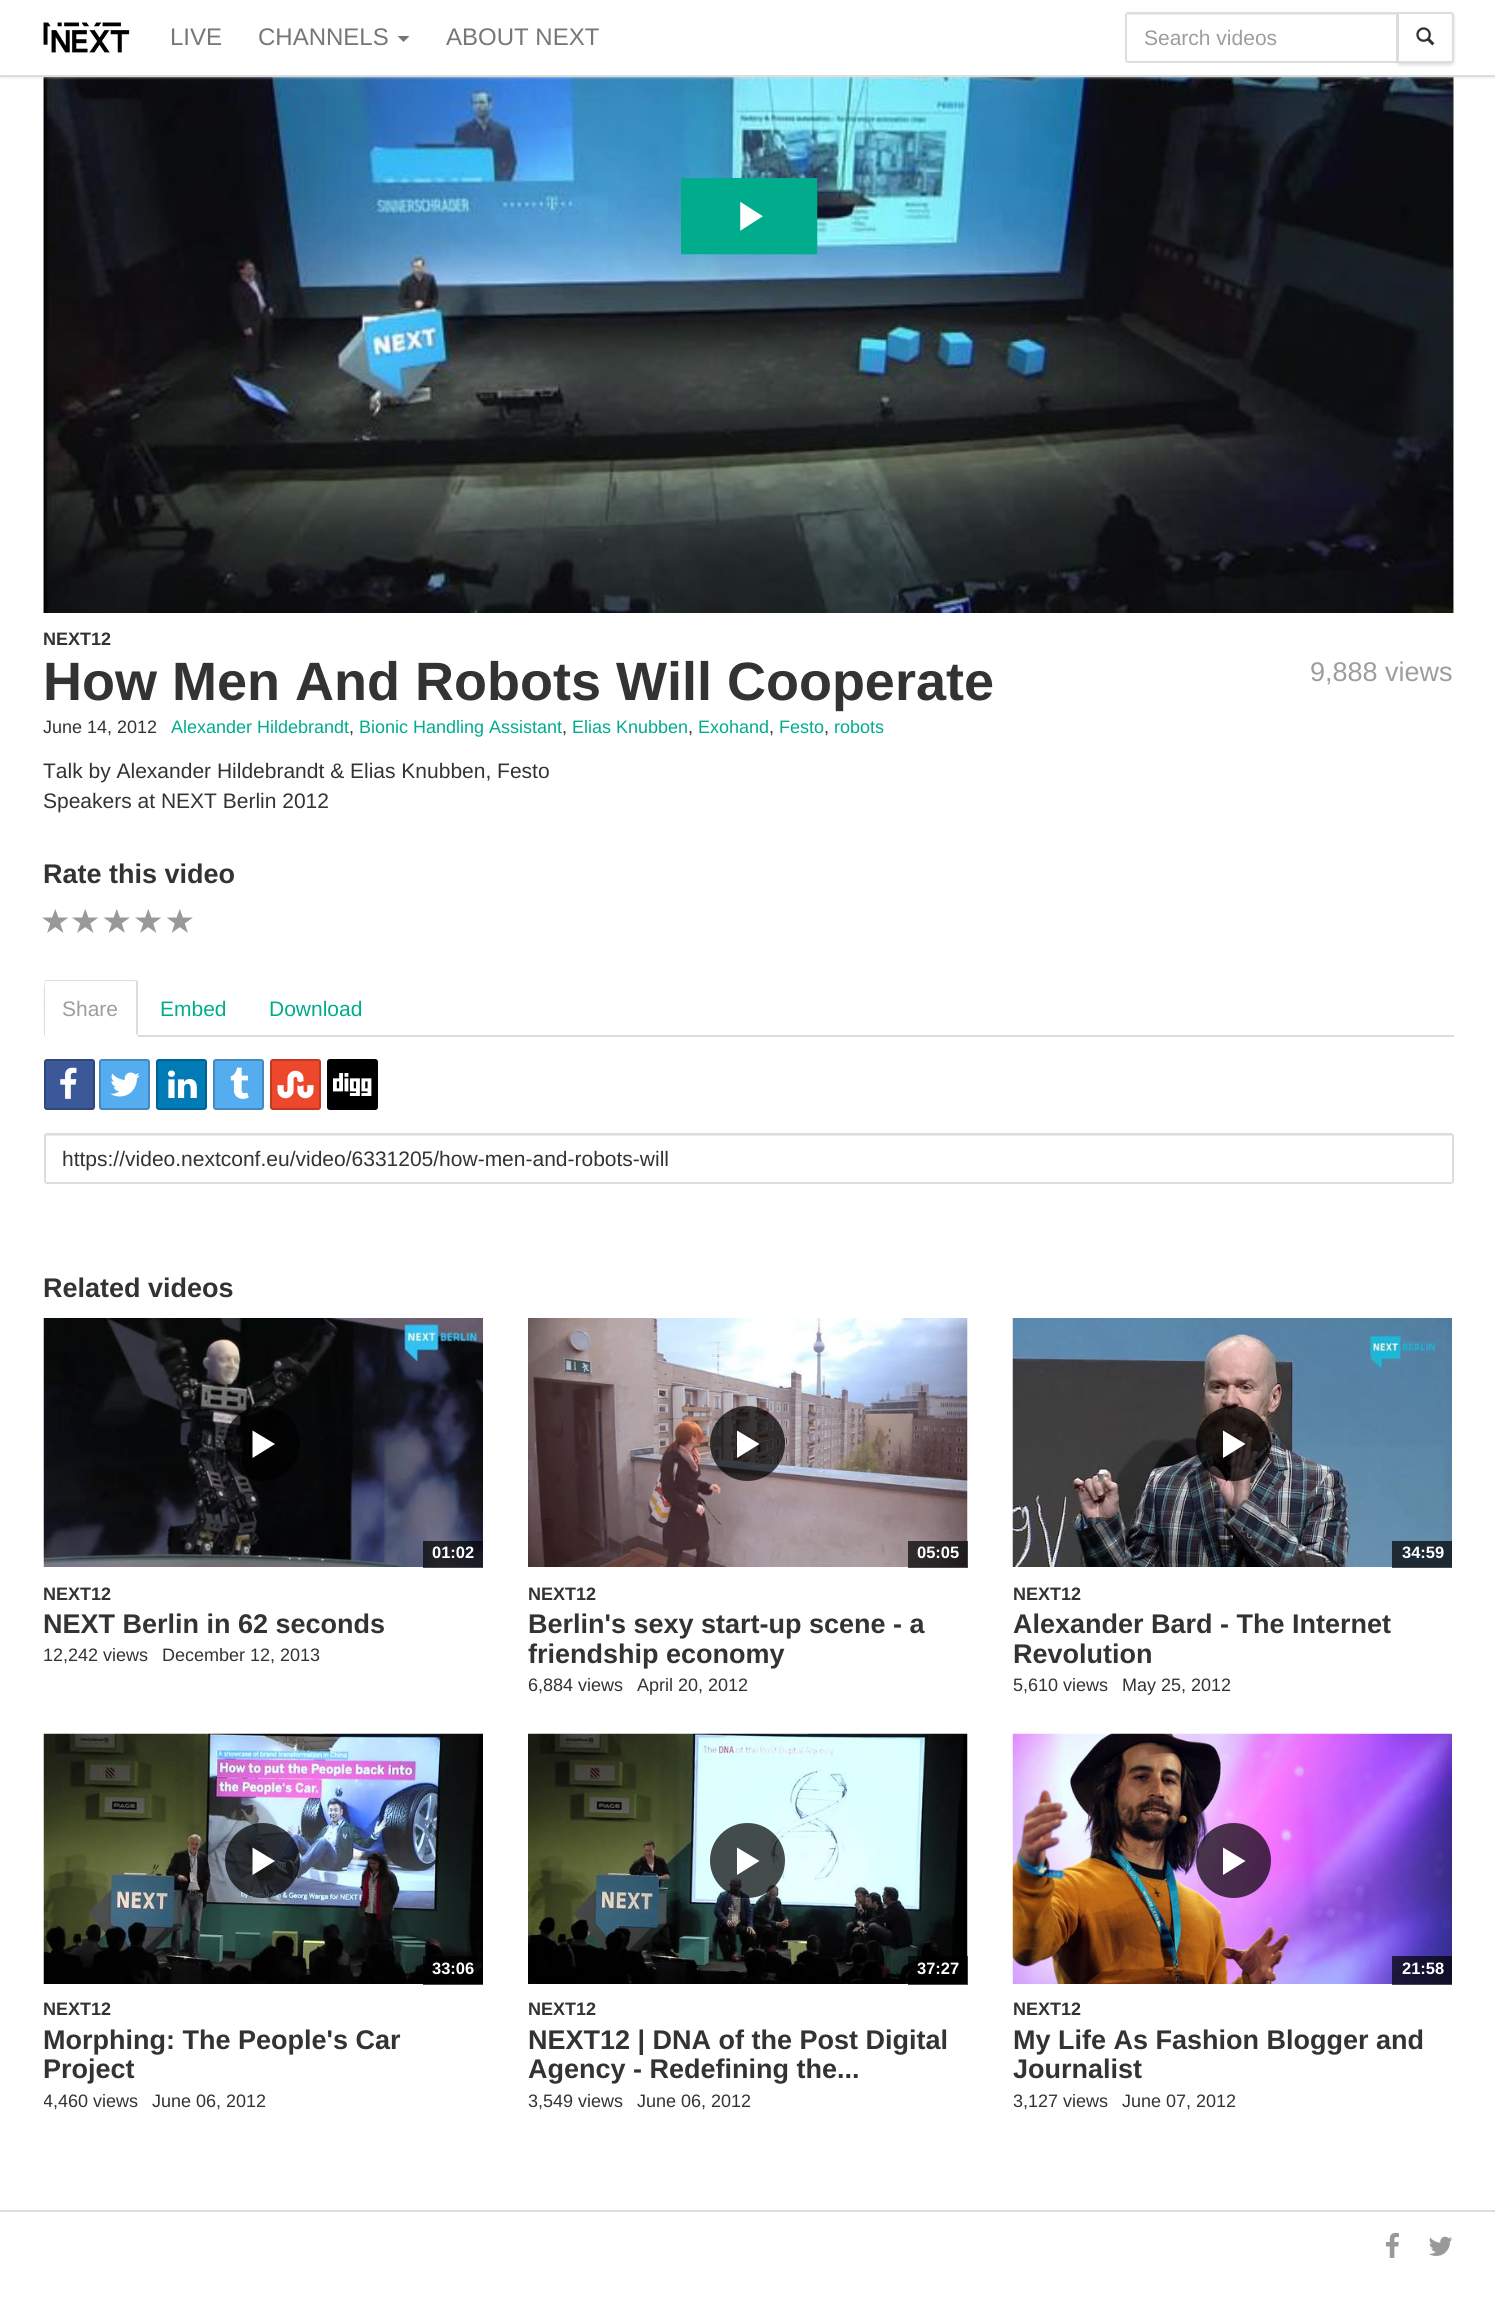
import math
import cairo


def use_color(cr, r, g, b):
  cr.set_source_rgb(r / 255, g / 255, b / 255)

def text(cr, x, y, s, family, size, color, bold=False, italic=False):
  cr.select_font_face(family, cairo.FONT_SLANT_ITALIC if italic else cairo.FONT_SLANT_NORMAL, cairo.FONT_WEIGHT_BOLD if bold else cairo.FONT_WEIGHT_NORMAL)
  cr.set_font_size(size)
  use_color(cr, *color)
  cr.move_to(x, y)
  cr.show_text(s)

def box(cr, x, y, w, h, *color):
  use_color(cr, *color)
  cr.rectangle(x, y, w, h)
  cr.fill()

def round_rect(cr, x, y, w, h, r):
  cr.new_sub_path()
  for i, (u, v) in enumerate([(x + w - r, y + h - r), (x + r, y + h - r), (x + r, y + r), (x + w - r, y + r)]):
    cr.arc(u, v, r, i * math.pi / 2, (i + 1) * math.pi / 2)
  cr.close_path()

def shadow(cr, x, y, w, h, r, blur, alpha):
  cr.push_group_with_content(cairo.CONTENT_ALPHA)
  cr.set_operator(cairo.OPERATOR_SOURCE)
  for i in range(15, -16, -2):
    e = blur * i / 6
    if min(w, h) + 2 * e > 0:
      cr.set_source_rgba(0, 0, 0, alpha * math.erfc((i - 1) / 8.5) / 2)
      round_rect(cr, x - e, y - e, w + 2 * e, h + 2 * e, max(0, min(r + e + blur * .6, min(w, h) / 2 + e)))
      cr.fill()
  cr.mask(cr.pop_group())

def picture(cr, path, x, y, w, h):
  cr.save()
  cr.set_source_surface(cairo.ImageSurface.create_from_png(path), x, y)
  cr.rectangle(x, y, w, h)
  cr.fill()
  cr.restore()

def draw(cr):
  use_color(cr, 255, 255, 255)
  cr.paint()
  picture(cr, "img_03.png", 43, 77, 1411, 536)
  use_color(cr, 221, 221, 221)
  shadow(cr, 0, 0, 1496, 77, 0, 1.5, 1)
  box(cr, 0, 0, 1495, 75, 255, 255, 255)
  box(cr, 0, 75, 1495, 2, 221, 221, 221)
  picture(cr, "img_01.png", 43, 22, 87, 31)
  use_color(cr, 119, 119, 119)
  cr.new_path()
  cr.move_to(397.5, 36)
  cr.line_to(409.5, 36)
  cr.line_to(403.5, 42)
  cr.close_path()
  cr.fill()
  use_color(cr, 221, 221, 221)
  shadow(cr, 1397, 14, 57, 51, 3, 1.5, 1)
  use_color(cr, 255, 255, 255)
  cr.new_path()
  cr.move_to(1398, 13)
  cr.line_to(1451, 13)
  cr.curve_to(1452, 13, 1453, 14, 1453, 15)
  cr.line_to(1453, 60)
  cr.curve_to(1453, 61, 1452, 62, 1451, 62)
  cr.line_to(1398, 62)
  cr.close_path()
  cr.fill_preserve()
  use_color(cr, 221, 221, 221)
  cr.stroke()
  use_color(cr, 255, 255, 255)
  cr.new_path()
  cr.move_to(1128, 12)
  cr.line_to(1398, 12)
  cr.line_to(1398, 63)
  cr.line_to(1128, 63)
  cr.curve_to(1126.5, 63, 1125, 61.5, 1125, 60)
  cr.line_to(1125, 15)
  cr.curve_to(1125, 13.5, 1126.5, 12, 1128, 12)
  cr.close_path()
  cr.fill()
  use_color(cr, 236, 236, 236)
  cr.new_path()
  cr.move_to(1128, 14)
  cr.line_to(1127, 15)
  cr.line_to(1396, 15)
  cr.line_to(1396, 62)
  cr.line_to(1397, 62)
  cr.line_to(1397, 14)
  cr.close_path()
  cr.fill()
  cr.new_path()
  cr.move_to(1128, 13)
  cr.line_to(1397, 13)
  cr.line_to(1397, 62)
  cr.line_to(1128, 62)
  cr.curve_to(1127, 62, 1126, 61, 1126, 60)
  cr.line_to(1126, 15)
  cr.curve_to(1126, 14, 1127, 13, 1128, 13)
  cr.close_path()
  use_color(cr, 221, 221, 221)
  cr.stroke()
  picture(cr, "img_02.png", 1416, 27, 19, 19)
  picture(cr, "img_04.png", 42, 909, 27, 24)
  picture(cr, "img_04.png", 72, 909, 27, 24)
  picture(cr, "img_05.png", 103, 909, 27, 24)
  picture(cr, "img_04.png", 135, 909, 27, 24)
  picture(cr, "img_05.png", 166, 909, 27, 24)
  box(cr, 138, 1035, 1316, 2, 221, 221, 221)
  cr.new_path()
  cr.move_to(46, 980)
  cr.line_to(45, 981)
  cr.line_to(46, 982)
  cr.line_to(46, 981)
  cr.line_to(135, 981)
  cr.line_to(136, 982)
  cr.line_to(137, 980)
  cr.line_to(135, 980)
  cr.close_path()
  cr.fill()
  cr.new_path()
  cr.move_to(137, 980)
  cr.line_to(138, 982)
  cr.line_to(138, 1036)
  cr.line_to(136, 1034)
  cr.line_to(136, 982)
  cr.close_path()
  cr.fill()
  cr.new_path()
  cr.move_to(45, 981)
  cr.curve_to(43, 982, 44, 1030, 44, 1036)
  cr.line_to(45, 1035)
  cr.line_to(45, 982)
  cr.line_to(46, 982)
  cr.close_path()
  cr.fill()
  use_color(cr, 59, 89, 152)
  round_rect(cr, 44, 1059, 51, 51, 3)
  cr.fill()
  round_rect(cr, 45, 1060, 49, 49, 2)
  cr.set_source_rgba(0, 0, 0, 0.2)
  cr.stroke()
  picture(cr, "img_06.png", 60, 1067, 17, 32)
  use_color(cr, 85, 172, 238)
  round_rect(cr, 99, 1059, 51, 51, 3)
  cr.fill()
  round_rect(cr, 100, 1060, 49, 49, 2)
  cr.set_source_rgba(0, 0, 0, 0.2)
  cr.stroke()
  picture(cr, "img_07.png", 110, 1072, 30, 25)
  use_color(cr, 0, 123, 182)
  round_rect(cr, 156, 1059, 51, 51, 3)
  cr.fill()
  round_rect(cr, 157, 1060, 49, 49, 2)
  cr.set_source_rgba(0, 0, 0, 0.2)
  cr.stroke()
  picture(cr, "img_08.png", 168, 1070, 29, 28)
  use_color(cr, 85, 172, 238)
  round_rect(cr, 213, 1059, 51, 51, 3)
  cr.fill()
  round_rect(cr, 214, 1060, 49, 49, 2)
  cr.set_source_rgba(0, 0, 0, 0.2)
  cr.stroke()
  picture(cr, "img_09.png", 230, 1067, 19, 32)
  use_color(cr, 237, 72, 44)
  round_rect(cr, 270, 1059, 51, 51, 3)
  cr.fill()
  round_rect(cr, 271, 1060, 49, 49, 2)
  cr.set_source_rgba(0, 0, 0, 0.2)
  cr.stroke()
  picture(cr, "img_10.png", 277, 1070, 37, 29)
  use_color(cr, 0, 0, 0)
  round_rect(cr, 327, 1059, 51, 51, 3)
  cr.fill()
  round_rect(cr, 328, 1060, 49, 49, 2)
  cr.set_source_rgba(0, 0, 0, 0.2)
  cr.stroke()
  picture(cr, "img_11.png", 333, 1073, 39, 23)
  use_color(cr, 236, 236, 236)
  cr.new_path()
  cr.move_to(46, 1136)
  cr.line_to(1450, 1136)
  cr.curve_to(1451, 1136, 1452, 1136, 1452, 1137)
  cr.line_to(1452, 1135)
  cr.line_to(1450, 1134)
  cr.line_to(46, 1134)
  cr.line_to(45, 1135)
  cr.line_to(45, 1137)
  cr.close_path()
  cr.fill()
  round_rect(cr, 45, 1134, 1408, 49, 2)
  use_color(cr, 221, 221, 221)
  cr.stroke()
  picture(cr, "img_12.png", 43, 1318, 440, 249)
  cr.set_source_rgba(0, 0, 0, 0.7)
  cr.arc(262.5, 1443.5, 37.5, 0, 2 * math.pi)
  cr.fill()
  use_color(cr, 255, 255, 255)
  cr.new_path()
  cr.move_to(252.5, 1458)
  cr.line_to(275, 1444)
  cr.line_to(252.5, 1430.5)
  cr.close_path()
  cr.fill()
  cr.set_source_rgba(0, 0, 0, 0.7)
  cr.rectangle(423, 1541, 60, 27)
  cr.fill()
  picture(cr, "img_13.png", 528, 1318, 440, 249)
  cr.arc(747.5, 1443.5, 37.5, 0, 2 * math.pi)
  cr.fill()
  use_color(cr, 255, 255, 255)
  cr.new_path()
  cr.move_to(737, 1458)
  cr.line_to(759.5, 1444)
  cr.line_to(737, 1430.5)
  cr.close_path()
  cr.fill()
  cr.set_source_rgba(0, 0, 0, 0.7)
  cr.rectangle(908, 1541, 60, 27)
  cr.fill()
  picture(cr, "img_14.png", 1012, 1318, 440, 249)
  cr.arc(1233.5, 1443.5, 37.5, 0, 2 * math.pi)
  cr.fill()
  use_color(cr, 255, 255, 255)
  cr.new_path()
  cr.move_to(1223, 1458)
  cr.line_to(1245.5, 1444)
  cr.line_to(1223, 1430.5)
  cr.close_path()
  cr.fill()
  cr.set_source_rgba(0, 0, 0, 0.7)
  cr.rectangle(1392, 1541, 60, 27)
  cr.fill()
  picture(cr, "img_15.png", 43, 1733, 440, 251)
  cr.arc(262.5, 1860.5, 37.5, 0, 2 * math.pi)
  cr.fill()
  use_color(cr, 255, 255, 255)
  cr.new_path()
  cr.move_to(252.5, 1875)
  cr.line_to(275, 1861)
  cr.line_to(252.5, 1847.5)
  cr.close_path()
  cr.fill()
  cr.set_source_rgba(0, 0, 0, 0.7)
  cr.rectangle(423, 1956, 60, 29)
  cr.fill()
  picture(cr, "img_16.png", 528, 1733, 440, 251)
  cr.arc(747.5, 1860.5, 37.5, 0, 2 * math.pi)
  cr.fill()
  use_color(cr, 255, 255, 255)
  cr.new_path()
  cr.move_to(737, 1875)
  cr.line_to(759.5, 1861)
  cr.line_to(737, 1847.5)
  cr.close_path()
  cr.fill()
  cr.set_source_rgba(0, 0, 0, 0.7)
  cr.rectangle(908, 1956, 60, 29)
  cr.fill()
  picture(cr, "img_17.png", 1012, 1733, 440, 251)
  cr.arc(1233.5, 1860.5, 37.5, 0, 2 * math.pi)
  cr.fill()
  use_color(cr, 255, 255, 255)
  cr.new_path()
  cr.move_to(1223, 1875)
  cr.line_to(1245.5, 1861)
  cr.line_to(1223, 1847.5)
  cr.close_path()
  cr.fill()
  cr.set_source_rgba(0, 0, 0, 0.7)
  cr.rectangle(1392, 1956, 60, 29)
  cr.fill()
  box(cr, 0, 2210, 1495, 2, 221, 221, 221)
  picture(cr, "img_18.png", 1385, 2232, 14, 26)
  picture(cr, "img_19.png", 1429, 2236, 24, 20)
  text(cr, 170, 45, "LIVE", "Liberation Sans", 24, (119, 119, 119))
  text(cr, 258, 45, "CHANNELS", "Liberation Sans", 24, (119, 119, 119))
  text(cr, 446, 45, "ABOUT NEXT", "Liberation Sans", 24, (119, 119, 119))
  text(cr, 1144, 45, "Search videos", "Liberation Sans", 21, (157, 157, 157))
  text(cr, 43, 645, "NEXT12", "Liberation Sans", 18, (51, 51, 51), bold=True)
  text(cr, 43, 700, "How Men And Robots Will Cooperate", "Liberation Sans", 54, (51, 51, 51), bold=True)
  text(cr, 1310, 681, "9,888 views", "Liberation Sans", 27, (157, 157, 157))
  text(cr, 43, 733, "June 14, 2012", "Liberation Sans", 18, (51, 51, 51))
  text(cr, 171, 733, "Alexander Hildebrandt", "Liberation Sans", 18, (0, 172, 140))
  text(cr, 349, 733, ",", "Liberation Sans", 18, (51, 51, 51))
  text(cr, 359, 733, "Bionic Handling Assistant", "Liberation Sans", 18, (0, 172, 140))
  text(cr, 562, 733, ",", "Liberation Sans", 18, (51, 51, 51))
  text(cr, 572, 733, "Elias Knubben", "Liberation Sans", 18, (0, 172, 140))
  text(cr, 688, 733, ",", "Liberation Sans", 18, (51, 51, 51))
  text(cr, 698, 733, "Exohand", "Liberation Sans", 18, (0, 172, 140))
  text(cr, 769, 733, ",", "Liberation Sans", 18, (51, 51, 51))
  text(cr, 779, 733, "Festo", "Liberation Sans", 18, (0, 172, 140))
  text(cr, 824, 733, ",", "Liberation Sans", 18, (51, 51, 51))
  text(cr, 834, 733, "robots", "Liberation Sans", 18, (0, 172, 140))
  text(cr, 43, 778, "Talk by Alexander Hildebrandt & Elias Knubben, Festo", "Liberation Sans", 21, (51, 51, 51))
  text(cr, 43, 808, "Speakers at NEXT Berlin 2012", "Liberation Sans", 21, (51, 51, 51))
  text(cr, 43, 883, "Rate this video", "Liberation Sans", 27, (51, 51, 51), bold=True)
  text(cr, 62, 1016, "Share", "Liberation Sans", 21, (157, 157, 157))
  text(cr, 160, 1016, "Embed", "Liberation Sans", 21, (0, 172, 140))
  text(cr, 269, 1016, "Download", "Liberation Sans", 21, (0, 172, 140))
  text(cr, 62, 1166, "https://video.nextconf.eu/video/6331205/how-men-and-robots-will", "Liberation Sans", 21, (51, 51, 51))
  text(cr, 43, 1297, "Related videos", "Liberation Sans", 27, (51, 51, 51), bold=True)
  text(cr, 432, 1558, "01:02", "Liberation Sans", 16.5, (255, 255, 255), bold=True)
  text(cr, 43, 1600, "NEXT12", "Liberation Sans", 18, (51, 51, 51), bold=True)
  text(cr, 43, 1633, "NEXT Berlin in 62 seconds", "Liberation Sans", 27, (51, 51, 51), bold=True)
  text(cr, 43, 1661, "12,242 views", "Liberation Sans", 18, (51, 51, 51))
  text(cr, 162, 1661, "December 12, 2013", "Liberation Sans", 18, (51, 51, 51))
  text(cr, 917, 1558, "05:05", "Liberation Sans", 16.5, (255, 255, 255), bold=True)
  text(cr, 528, 1600, "NEXT12", "Liberation Sans", 18, (51, 51, 51), bold=True)
  text(cr, 528, 1633, "Berlin's sexy start-up scene - a", "Liberation Sans", 27, (51, 51, 51), bold=True)
  text(cr, 528, 1663, "friendship economy", "Liberation Sans", 27, (51, 51, 51), bold=True)
  text(cr, 528, 1691, "6,884 views", "Liberation Sans", 18, (51, 51, 51))
  text(cr, 637, 1691, "April 20, 2012", "Liberation Sans", 18, (51, 51, 51))
  text(cr, 1402, 1558, "34:59", "Liberation Sans", 16.5, (255, 255, 255), bold=True)
  text(cr, 1013, 1600, "NEXT12", "Liberation Sans", 18, (51, 51, 51), bold=True)
  text(cr, 1013, 1633, "Alexander Bard - The Internet", "Liberation Sans", 27, (51, 51, 51), bold=True)
  text(cr, 1013, 1663, "Revolution", "Liberation Sans", 27, (51, 51, 51), bold=True)
  text(cr, 1013, 1691, "5,610 views", "Liberation Sans", 18, (51, 51, 51))
  text(cr, 1122, 1691, "May 25, 2012", "Liberation Sans", 18, (51, 51, 51))
  text(cr, 432, 1974, "33:06", "Liberation Sans", 16.5, (255, 255, 255), bold=True)
  text(cr, 43, 2015, "NEXT12", "Liberation Sans", 18, (51, 51, 51), bold=True)
  text(cr, 43, 2049, "Morphing: The People's Car", "Liberation Sans", 27, (51, 51, 51), bold=True)
  text(cr, 43, 2078, "Project", "Liberation Sans", 27, (51, 51, 51), bold=True)
  cr.save()
  cr.rectangle(44, 1734, 439, 387)
  cr.clip()
  text(cr, 43, 2107, "4,460 views", "Liberation Sans", 18, (51, 51, 51))
  cr.restore()
  text(cr, 152, 2107, "June 06, 2012", "Liberation Sans", 18, (51, 51, 51))
  text(cr, 917, 1974, "37:27", "Liberation Sans", 16.5, (255, 255, 255), bold=True)
  text(cr, 528, 2015, "NEXT12", "Liberation Sans", 18, (51, 51, 51), bold=True)
  text(cr, 528, 2049, "NEXT12 | DNA of the Post Digital", "Liberation Sans", 27, (51, 51, 51), bold=True)
  text(cr, 528, 2078, "Agency - Redefining the...", "Liberation Sans", 27, (51, 51, 51), bold=True)
  text(cr, 528, 2107, "3,549 views", "Liberation Sans", 18, (51, 51, 51))
  text(cr, 637, 2107, "June 06, 2012", "Liberation Sans", 18, (51, 51, 51))
  text(cr, 1402, 1974, "21:58", "Liberation Sans", 16.5, (255, 255, 255), bold=True)
  text(cr, 1013, 2015, "NEXT12", "Liberation Sans", 18, (51, 51, 51), bold=True)
  text(cr, 1013, 2049, "My Life As Fashion Blogger and", "Liberation Sans", 27, (51, 51, 51), bold=True)
  text(cr, 1013, 2078, "Journalist", "Liberation Sans", 27, (51, 51, 51), bold=True)
  text(cr, 1013, 2107, "3,127 views", "Liberation Sans", 18, (51, 51, 51))
  text(cr, 1122, 2107, "June 07, 2012", "Liberation Sans", 18, (51, 51, 51))


surface = cairo.ImageSurface(cairo.FORMAT_RGB24, 1495, 2308)
cr = cairo.Context(surface)
options = cairo.FontOptions()
options.set_hint_metrics(cairo.HINT_METRICS_OFF)
options.set_hint_style(cairo.HINT_STYLE_NONE)
cr.set_font_options(options)
cr.set_miter_limit(4)
draw(cr)
surface.write_to_png("out.png")
